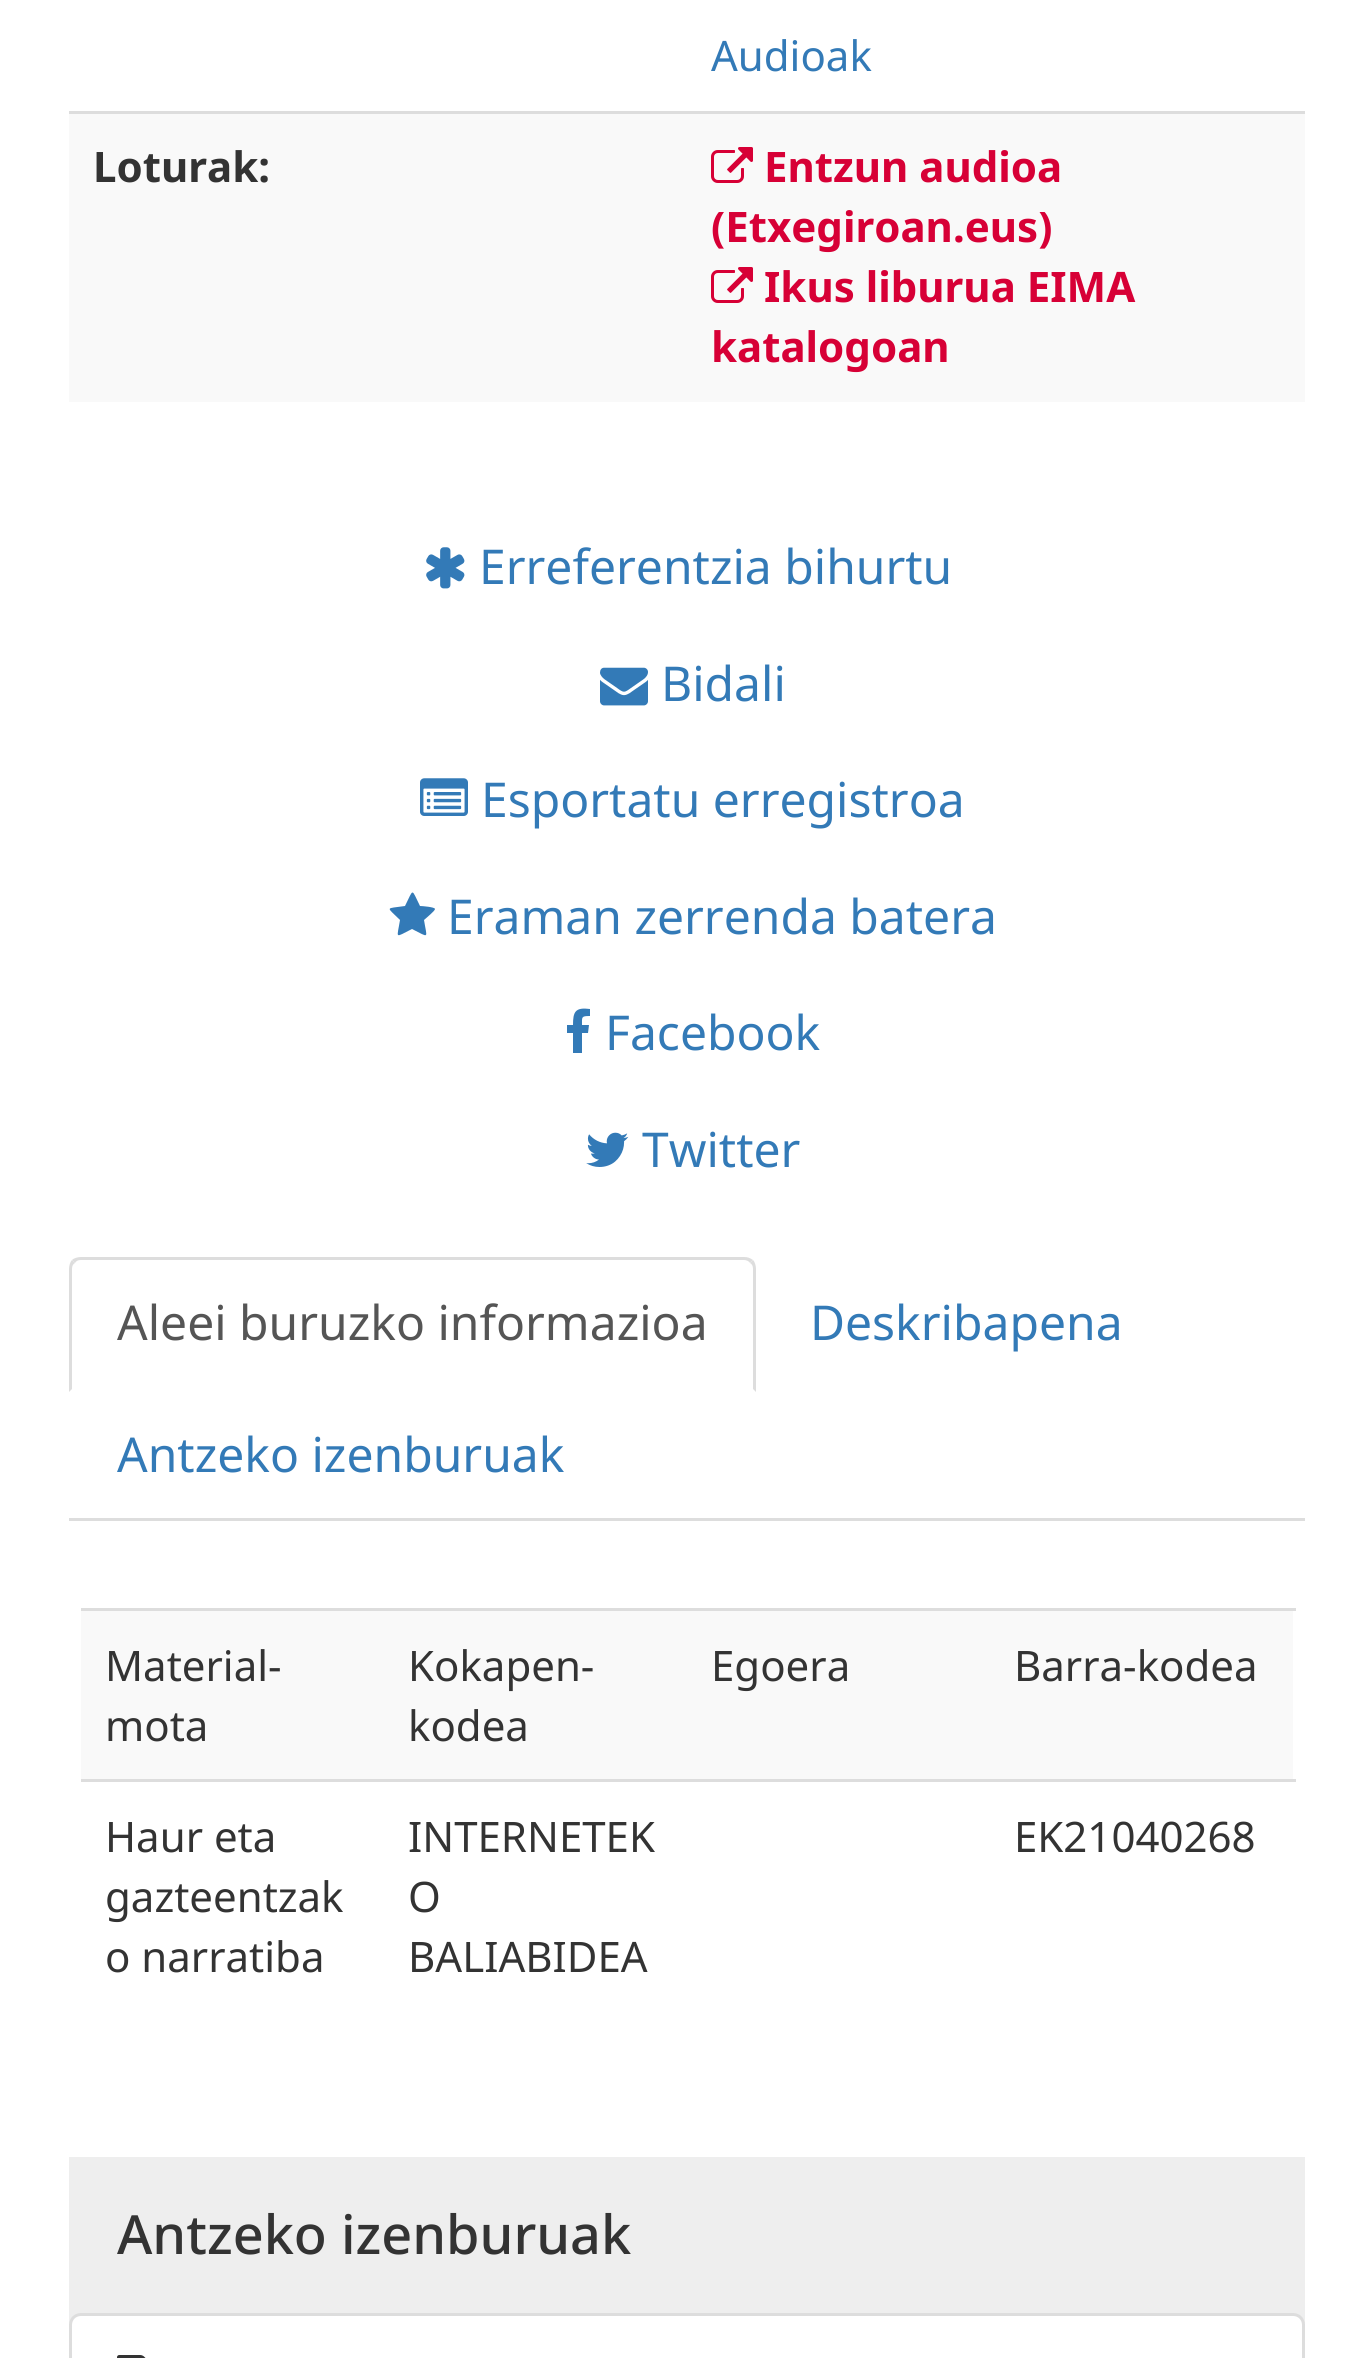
import math
import cairo


def use_color(cr, r, g, b):
  cr.set_source_rgb(r / 255, g / 255, b / 255)

def text(cr, x, y, s, family, size, color, bold=False, italic=False):
  cr.select_font_face(family, cairo.FONT_SLANT_ITALIC if italic else cairo.FONT_SLANT_NORMAL, cairo.FONT_WEIGHT_BOLD if bold else cairo.FONT_WEIGHT_NORMAL)
  cr.set_font_size(size)
  use_color(cr, *color)
  cr.move_to(x, y)
  cr.show_text(s)

def box(cr, x, y, w, h, *color):
  use_color(cr, *color)
  cr.rectangle(x, y, w, h)
  cr.fill()

def picture(cr, path, x, y, w, h):
  cr.save()
  cr.set_source_surface(cairo.ImageSurface.create_from_png(path), x, y)
  cr.rectangle(x, y, w, h)
  cr.fill()
  cr.restore()

def draw(cr):
  use_color(cr, 255, 255, 255)
  cr.paint()
  box(cr, 69, 114, 1236, 288, 249, 249, 249)
  box(cr, 69, 111, 1236, 3, 221, 221, 221)
  picture(cr, "img_01.png", 711, 147, 42, 36)
  picture(cr, "img_01.png", 711, 267, 42, 36)
  box(cr, 69, 1518, 1236, 3, 221, 221, 221)
  picture(cr, "img_02.png", 426, 547, 39, 42)
  picture(cr, "img_03.png", 600, 667, 48, 39)
  picture(cr, "img_04.png", 420, 778, 48, 38)
  use_color(cr, 51, 122, 183)
  cr.new_path()
  cr.move_to(435, 909)
  cr.curve_to(435, 911, 426, 918, 424, 920)
  cr.curve_to(427, 939, 430, 938, 412, 929)
  cr.curve_to(394, 938, 397, 939, 400, 920)
  cr.curve_to(386, 906, 385, 909, 405, 906)
  cr.curve_to(414, 888, 411, 888, 420, 906)
  cr.curve_to(422, 906, 435, 907, 435, 909)
  cr.close_path()
  cr.fill()
  cr.new_path()
  cr.move_to(590, 1009)
  cr.line_to(590, 1016)
  cr.curve_to(581, 1016, 582, 1017, 582, 1025)
  cr.line_to(589, 1025)
  cr.line_to(588, 1033)
  cr.line_to(582, 1033)
  cr.line_to(582, 1053)
  cr.line_to(573, 1053)
  cr.line_to(573, 1033)
  cr.line_to(567, 1033)
  cr.line_to(567, 1025)
  cr.line_to(573, 1025)
  cr.curve_to(573, 1012, 575, 1007, 590, 1009)
  cr.close_path()
  cr.fill()
  picture(cr, "img_05.png", 586, 1132, 43, 35)
  use_color(cr, 221, 221, 221)
  cr.new_path()
  cr.move_to(81, 1257)
  cr.curve_to(78, 1257, 74, 1258, 72, 1260)
  cr.line_to(75, 1263)
  cr.curve_to(76, 1261, 78, 1260, 81, 1260)
  cr.line_to(744, 1260)
  cr.curve_to(746, 1260, 749, 1261, 750, 1263)
  cr.line_to(753, 1260)
  cr.curve_to(750, 1258, 748, 1257, 744, 1257)
  cr.close_path()
  cr.fill()
  cr.new_path()
  cr.move_to(756, 1392)
  cr.line_to(756, 1269)
  cr.curve_to(756, 1266, 755, 1262, 753, 1260)
  cr.line_to(750, 1263)
  cr.curve_to(752, 1264, 753, 1266, 753, 1269)
  cr.line_to(753, 1389)
  cr.close_path()
  cr.fill()
  cr.new_path()
  cr.move_to(69, 1392)
  cr.line_to(72, 1389)
  cr.line_to(72, 1269)
  cr.curve_to(72, 1266, 73, 1264, 75, 1263)
  cr.line_to(72, 1260)
  cr.curve_to(70, 1262, 69, 1266, 69, 1269)
  cr.close_path()
  cr.fill()
  box(cr, 81, 1611, 1212, 168, 249, 249, 249)
  box(cr, 81, 1608, 1215, 3, 221, 221, 221)
  box(cr, 81, 1779, 1215, 3, 221, 221, 221)
  box(cr, 69, 2157, 1236, 168, 238, 238, 238)
  use_color(cr, 255, 255, 255)
  cr.new_path()
  cr.move_to(81, 2314.5)
  cr.line_to(1293, 2314.5)
  cr.curve_to(1299, 2314.5, 1303.5, 2319, 1303.5, 2325)
  cr.line_to(1303.5, 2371.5)
  cr.line_to(70.5, 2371.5)
  cr.line_to(70.5, 2325)
  cr.curve_to(70.5, 2319, 75, 2314.5, 81, 2314.5)
  cr.close_path()
  cr.fill_preserve()
  use_color(cr, 221, 221, 221)
  cr.set_line_width(3)
  cr.stroke()
  picture(cr, "img_06.png", 117, 2355, 29, 3)
  text(cr, 711, 71, "Audioak", "Noto Sans", 42, (51, 122, 183))
  text(cr, 93, 182, "Loturak:", "Noto Sans", 42, (51, 51, 51), bold=True)
  text(cr, 764, 182, "Entzun audioa", "Noto Sans", 42, (215, 0, 54), bold=True)
  text(cr, 711, 242, "(Etxegiroan.eus)", "Noto Sans", 42, (215, 0, 54), bold=True)
  text(cr, 764, 302, "Ikus liburua EIMA", "Noto Sans", 42, (215, 0, 54), bold=True)
  text(cr, 711, 362, "katalogoan", "Noto Sans", 42, (215, 0, 54), bold=True)
  text(cr, 479, 584, "Erreferentzia bihurtu", "Noto Sans", 48, (51, 122, 183))
  text(cr, 661, 701, "Bidali", "Noto Sans", 48, (51, 122, 183))
  text(cr, 481, 817, "Esportatu erregistroa", "Noto Sans", 48, (51, 122, 183))
  text(cr, 447, 934, "Eraman zerrenda batera", "Noto Sans", 48, (51, 122, 183))
  text(cr, 605, 1050, "Facebook", "Noto Sans", 48, (51, 122, 183))
  text(cr, 642, 1167, "Twitter", "Noto Sans", 48, (51, 122, 183))
  text(cr, 117, 1340, "Aleei buruzko informazioa", "Noto Sans", 48, (85, 85, 85))
  text(cr, 810, 1340, "Deskribapena", "Noto Sans", 48, (51, 122, 183))
  text(cr, 117, 1472, "Antzeko izenburuak", "Noto Sans", 48, (51, 122, 183))
  text(cr, 105, 1681, "Material-", "Noto Sans", 42, (51, 51, 51))
  text(cr, 105, 1741, "mota", "Noto Sans", 42, (51, 51, 51))
  text(cr, 408, 1681, "Kokapen-", "Noto Sans", 42, (51, 51, 51))
  text(cr, 408, 1741, "kodea", "Noto Sans", 42, (51, 51, 51))
  text(cr, 711, 1681, "Egoera", "Noto Sans", 42, (51, 51, 51))
  text(cr, 1014, 1681, "Barra-kodea", "Noto Sans", 42, (51, 51, 51))
  text(cr, 105, 1852, "Haur eta", "Noto Sans", 42, (51, 51, 51))
  text(cr, 105, 1912, "gazteentzak", "Noto Sans", 42, (51, 51, 51))
  text(cr, 105, 1972, "o narratiba", "Noto Sans", 42, (51, 51, 51))
  text(cr, 408, 1852, "INTERNETEK", "Noto Sans", 42, (51, 51, 51))
  text(cr, 408, 1912, "O", "Noto Sans", 42, (51, 51, 51))
  text(cr, 408, 1972, "BALIABIDEA", "Noto Sans", 42, (51, 51, 51))
  text(cr, 1014, 1852, "EK21040268", "Noto Sans", 42, (51, 51, 51))
  text(cr, 117, 2254, "Antzeko izenburuak", "Noto Sans Medium", 54, (51, 51, 51))


surface = cairo.ImageSurface(cairo.FORMAT_RGB24, 1372, 2358)
cr = cairo.Context(surface)
options = cairo.FontOptions()
options.set_hint_metrics(cairo.HINT_METRICS_OFF)
options.set_hint_style(cairo.HINT_STYLE_NONE)
cr.set_font_options(options)
cr.set_miter_limit(4)
draw(cr)
surface.write_to_png("out.png")
